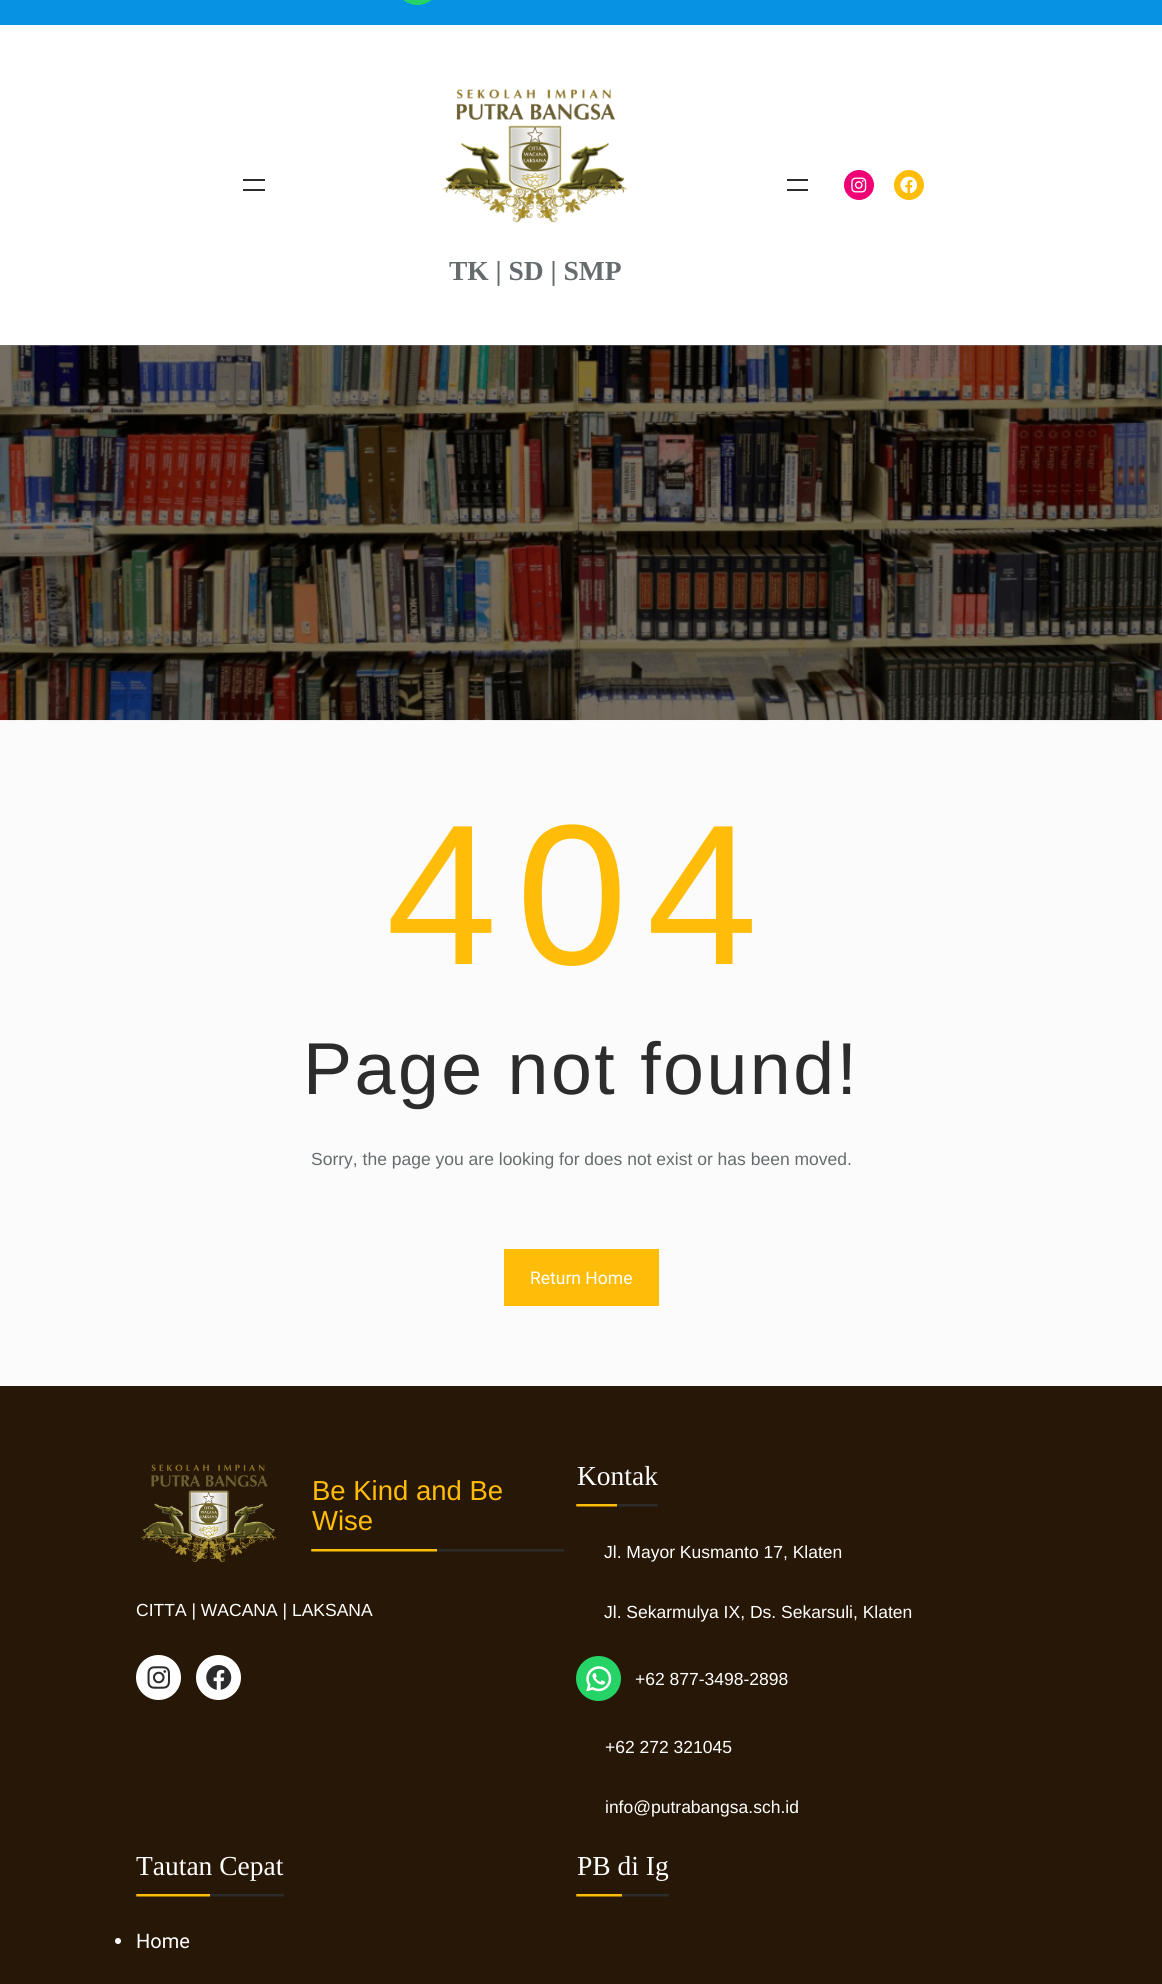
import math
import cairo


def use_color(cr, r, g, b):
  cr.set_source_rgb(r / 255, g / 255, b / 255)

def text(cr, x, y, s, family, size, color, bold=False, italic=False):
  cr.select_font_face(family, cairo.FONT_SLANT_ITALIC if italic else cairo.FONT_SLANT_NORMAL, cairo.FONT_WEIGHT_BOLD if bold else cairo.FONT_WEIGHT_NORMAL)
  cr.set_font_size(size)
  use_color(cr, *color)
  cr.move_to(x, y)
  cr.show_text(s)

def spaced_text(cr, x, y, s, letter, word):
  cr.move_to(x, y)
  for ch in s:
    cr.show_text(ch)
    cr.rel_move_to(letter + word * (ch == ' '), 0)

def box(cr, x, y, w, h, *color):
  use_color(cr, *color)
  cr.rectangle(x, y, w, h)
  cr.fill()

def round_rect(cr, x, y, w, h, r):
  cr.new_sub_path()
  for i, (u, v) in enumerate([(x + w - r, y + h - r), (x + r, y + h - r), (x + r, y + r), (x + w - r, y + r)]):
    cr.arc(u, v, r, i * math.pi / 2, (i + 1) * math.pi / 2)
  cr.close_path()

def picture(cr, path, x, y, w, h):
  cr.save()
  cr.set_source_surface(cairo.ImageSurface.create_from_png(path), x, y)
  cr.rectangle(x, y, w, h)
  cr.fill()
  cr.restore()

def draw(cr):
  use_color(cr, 251, 251, 251)
  cr.paint()
  box(cr, 0, 345, 1162, 1, 126, 126, 126)
  box(cr, 0, 0, 1162, 25, 6, 147, 227)
  use_color(cr, 37, 211, 102)
  round_rect(cr, 395, -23, 45, 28, 22.5)
  cr.fill()
  box(cr, 0, 25, 1162, 320, 255, 255, 255)
  box(cr, 243, 179, 22, 2, 44, 44, 44)
  box(cr, 243, 189, 22, 2, 44, 44, 44)
  box(cr, 787, 179, 21, 2, 44, 44, 44)
  box(cr, 787, 189, 21, 2, 44, 44, 44)
  use_color(cr, 240, 0, 117)
  cr.arc(859, 185, 15, 0, 2 * math.pi)
  cr.fill()
  picture(cr, "img_01.png", 851, 177, 16, 16)
  use_color(cr, 255, 189, 10)
  cr.arc(909, 185, 15, 0, 2 * math.pi)
  cr.fill()
  picture(cr, "img_02.png", 900, 176, 18, 18)
  picture(cr, "img_03.png", 442, 89, 186, 134)
  picture(cr, "img_04.png", 0, 345, 1162, 376)
  box(cr, 504, 1249, 155, 57, 255, 189, 10)
  box(cr, 0, 1386, 1162, 598, 39, 23, 6)
  picture(cr, "img_05.png", 140, 1464, 137, 98)
  picture(cr, "img_06.png", 311, 1549, 253, 3)
  use_color(cr, 255, 255, 255)
  cr.arc(158.5, 1677.5, 22.5, 0, 2 * math.pi)
  cr.fill()
  picture(cr, "img_07.png", 147, 1666, 23, 23)
  cr.arc(218.5, 1677.5, 22.5, 0, 2 * math.pi)
  cr.fill()
  picture(cr, "img_08.png", 206, 1665, 26, 25)
  picture(cr, "img_09.png", 576, 1504, 82, 3)
  use_color(cr, 37, 211, 102)
  cr.arc(598.5, 1678.5, 22.5, 0, 2 * math.pi)
  cr.fill()
  picture(cr, "img_10.png", 586, 1666, 26, 26)
  picture(cr, "img_11.png", 136, 1894, 148, 3)
  use_color(cr, 255, 255, 255)
  cr.arc(118, 1941, 3, 0, 2 * math.pi)
  cr.fill()
  picture(cr, "img_12.png", 576, 1894, 93, 3)
  text(cr, 449, 280, "TK | SD | SMP", "Liberation Serif", 27.5, (102, 108, 110), bold=True)
  cr.select_font_face("Liberation Sans")
  cr.set_font_size(200)
  use_color(cr, 255, 189, 10)
  spaced_text(cr, 386, 964, "404", 19, 0)
  cr.set_font_size(73.5)
  use_color(cr, 44, 44, 44)
  spaced_text(cr, 303, 1094, "Page not found!", 2.5, 0)
  text(cr, 311, 1165, "Sorry, the page you are looking for does not exist or has been moved.", "Liberation Sans", 17.5, (102, 108, 110))
  text(cr, 530, 1284, "Return Home", "Roboto", 17.5, (255, 255, 255))
  text(cr, 312, 1500, "Be Kind and Be", "Liberation Sans", 27.5, (255, 189, 10))
  text(cr, 312, 1530, "Wise", "Liberation Sans", 27.5, (255, 189, 10))
  text(cr, 136, 1616, "CITTA | WACANA | LAKSANA", "Liberation Sans", 17.5, (255, 255, 255))
  text(cr, 577, 1485, "Kontak", "Liberation Serif", 27.5, (255, 255, 255))
  text(cr, 604, 1558, "Jl. Mayor Kusmanto 17, Klaten", "Liberation Sans", 17.5, (255, 255, 255))
  text(cr, 604, 1618, "Jl. Sekarmulya IX, Ds. Sekarsuli, Klaten", "Liberation Sans", 17.5, (255, 255, 255))
  text(cr, 635, 1685, "+62 877-3498-2898", "Liberation Sans", 17.5, (255, 255, 255))
  text(cr, 605, 1753, "+62 272 321045", "Liberation Sans", 17.5, (255, 255, 255))
  text(cr, 605, 1813, "info@putrabangsa.sch.id", "Liberation Sans", 17.5, (255, 255, 255))
  text(cr, 136, 1875, "Tautan Cepat", "Liberation Serif", 27.5, (255, 255, 255))
  text(cr, 136, 1948, "Home", "Roboto", 20, (255, 255, 255))
  text(cr, 577, 1875, "PB di Ig", "Liberation Serif", 27.5, (255, 255, 255))


surface = cairo.ImageSurface(cairo.FORMAT_RGB24, 1162, 1984)
cr = cairo.Context(surface)
options = cairo.FontOptions()
options.set_hint_metrics(cairo.HINT_METRICS_OFF)
options.set_hint_style(cairo.HINT_STYLE_NONE)
cr.set_font_options(options)
cr.set_miter_limit(4)
draw(cr)
surface.write_to_png("out.png")
